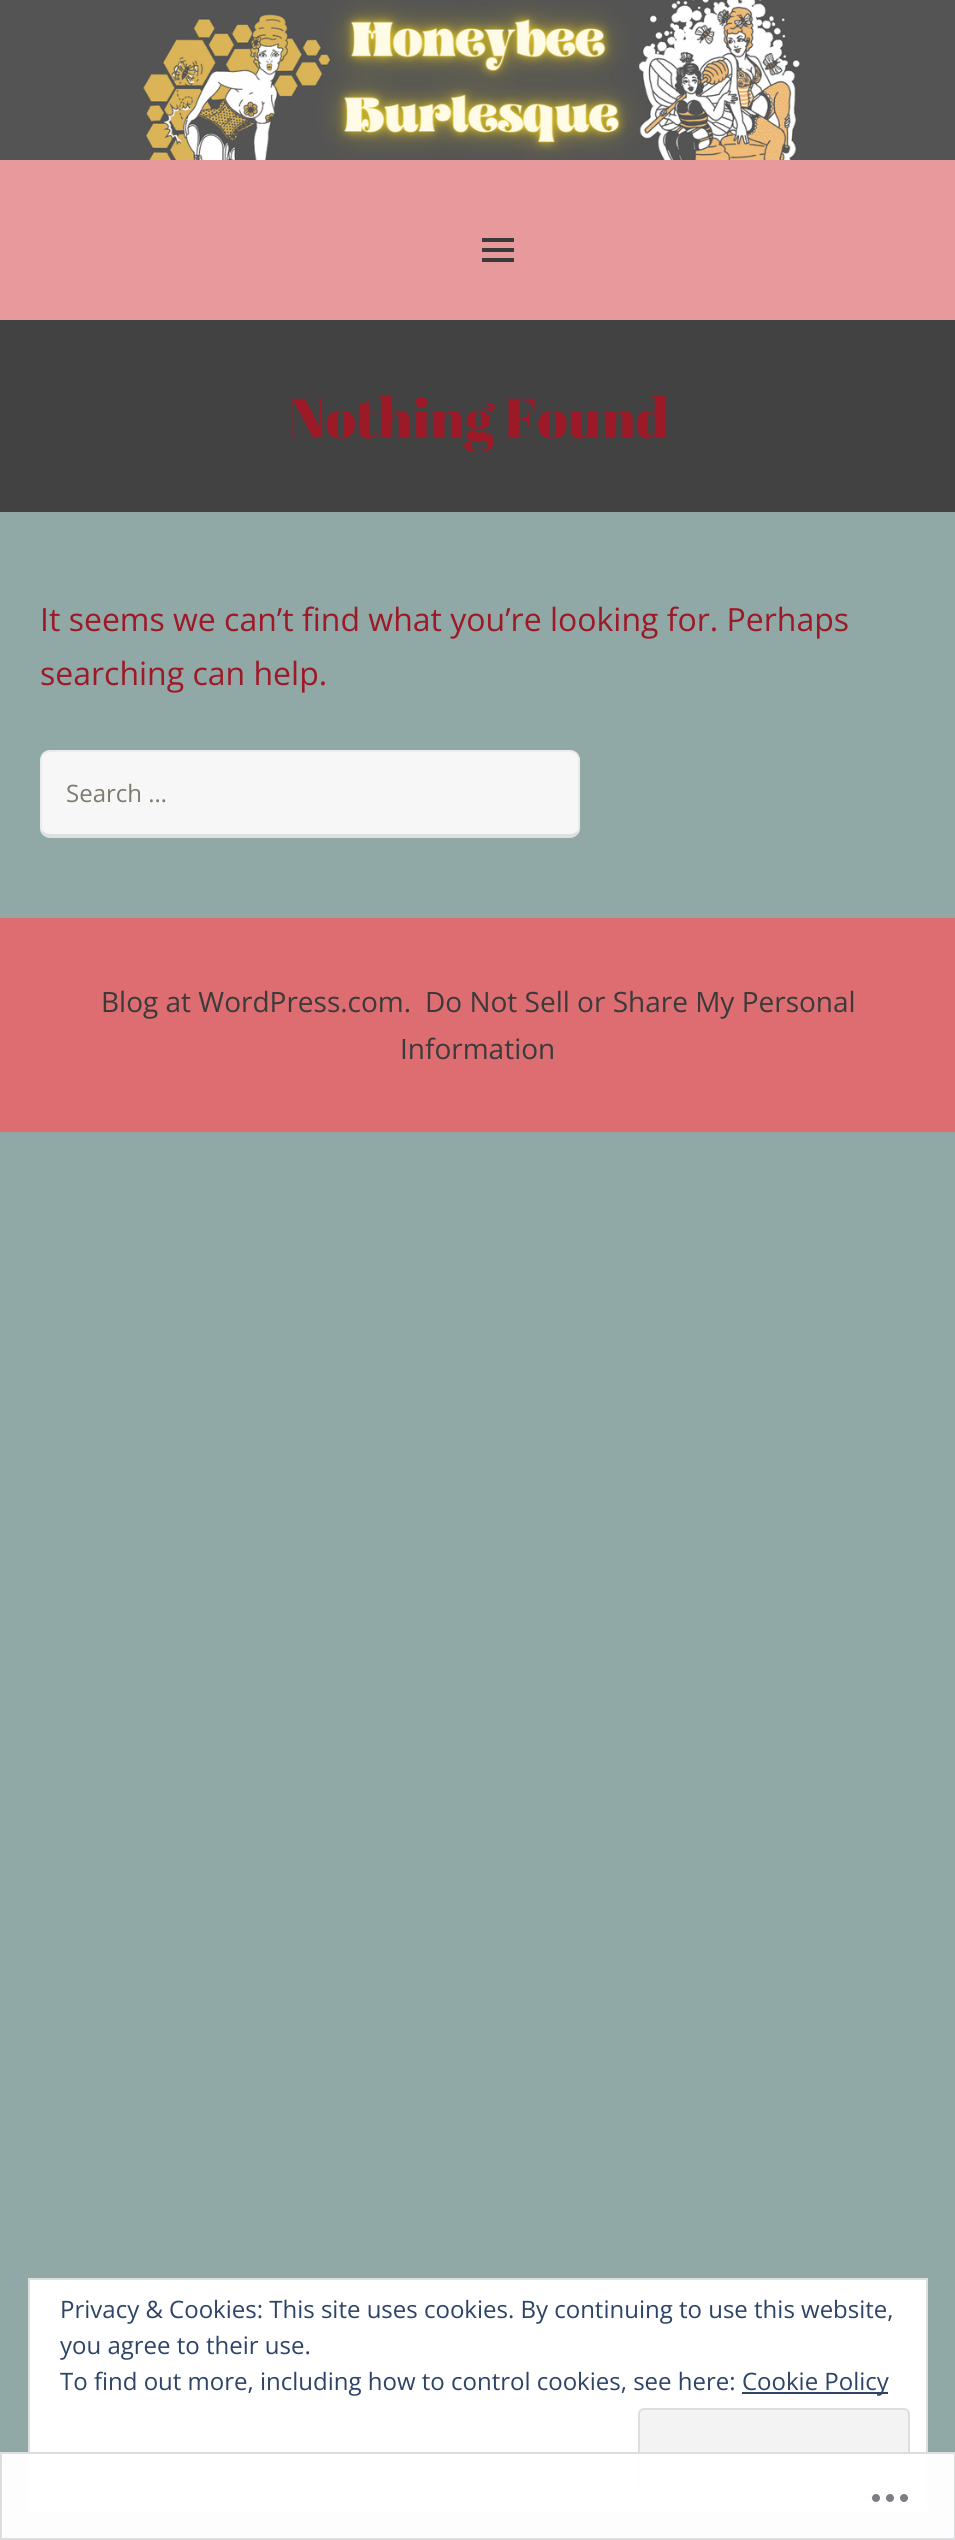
import math
import cairo


def use_color(cr, r, g, b):
  cr.set_source_rgb(r / 255, g / 255, b / 255)

def text(cr, x, y, s, family, size, color, bold=False, italic=False):
  cr.select_font_face(family, cairo.FONT_SLANT_ITALIC if italic else cairo.FONT_SLANT_NORMAL, cairo.FONT_WEIGHT_BOLD if bold else cairo.FONT_WEIGHT_NORMAL)
  cr.set_font_size(size)
  use_color(cr, *color)
  cr.move_to(x, y)
  cr.show_text(s)

def box(cr, x, y, w, h, *color):
  use_color(cr, *color)
  cr.rectangle(x, y, w, h)
  cr.fill()

def round_rect(cr, x, y, w, h, r):
  cr.new_sub_path()
  for i, (u, v) in enumerate([(x + w - r, y + h - r), (x + r, y + h - r), (x + r, y + r), (x + w - r, y + r)]):
    cr.arc(u, v, r, i * math.pi / 2, (i + 1) * math.pi / 2)
  cr.close_path()

def picture(cr, path, x, y, w, h):
  cr.save()
  cr.set_source_surface(cairo.ImageSurface.create_from_png(path), x, y)
  cr.rectangle(x, y, w, h)
  cr.fill()
  cr.restore()

def draw(cr):
  use_color(cr, 144, 169, 166)
  cr.paint()
  picture(cr, "img_01.png", 0, 0, 955, 160)
  box(cr, 0, 160, 955, 160, 232, 153, 156)
  picture(cr, "img_02.png", 482, 238, 32, 24)
  box(cr, 0, 320, 955, 192, 66, 66, 66)
  use_color(cr, 247, 247, 247)
  round_rect(cr, 40, 750, 540, 88, 10)
  cr.fill()
  cr.set_source_rgba(0, 0, 0, 0.05)
  cr.new_path()
  cr.move_to(50, 750)
  cr.curve_to(47, 750, 44, 751, 43, 753)
  cr.line_to(44, 754)
  cr.curve_to(46, 753, 48, 752, 50, 752)
  cr.line_to(570, 752)
  cr.curve_to(572, 752, 574, 753, 576, 754)
  cr.line_to(577, 753)
  cr.curve_to(576, 751, 573, 750, 570, 750)
  cr.close_path()
  cr.fill()
  cr.new_path()
  cr.move_to(580, 828)
  cr.line_to(580, 760)
  cr.curve_to(580, 757, 579, 754, 577, 753)
  cr.line_to(576, 754)
  cr.curve_to(577, 756, 578, 757, 578, 759)
  cr.line_to(578, 828)
  cr.line_to(577, 831)
  cr.line_to(578, 834)
  cr.curve_to(579, 833, 580, 830, 580, 828)
  cr.close_path()
  cr.fill()
  cr.set_source_rgba(0, 0, 0, 0.1)
  cr.new_path()
  cr.move_to(50, 838)
  cr.line_to(570, 838)
  cr.curve_to(574, 838, 576, 837, 578, 834)
  cr.line_to(577, 831)
  cr.curve_to(575, 833, 573, 834, 570, 834)
  cr.line_to(50, 834)
  cr.curve_to(47, 834, 45, 833, 43, 831)
  cr.line_to(42, 834)
  cr.curve_to(44, 837, 46, 838, 50, 838)
  cr.close_path()
  cr.fill()
  cr.set_source_rgba(0, 0, 0, 0.05)
  cr.new_path()
  cr.move_to(40, 760)
  cr.line_to(40, 828)
  cr.curve_to(40, 830, 41, 833, 42, 834)
  cr.line_to(43, 831)
  cr.line_to(42, 828)
  cr.line_to(42, 759)
  cr.curve_to(42, 757, 43, 756, 44, 754)
  cr.line_to(43, 753)
  cr.curve_to(41, 754, 40, 757, 40, 760)
  cr.close_path()
  cr.fill()
  box(cr, 0, 918, 955, 214, 221, 109, 113)
  use_color(cr, 255, 255, 255)
  cr.rectangle(29, 2279, 898, 232)
  cr.fill_preserve()
  use_color(cr, 222, 222, 222)
  cr.stroke()
  box(cr, 742, 2392, 146, 2, 46, 68, 103)
  use_color(cr, 243, 243, 243)
  round_rect(cr, 639, 2409, 270, 84, 5)
  cr.fill_preserve()
  use_color(cr, 222, 222, 222)
  cr.stroke()
  cr.set_source_rgba(1, 1, 1, 0.98)
  cr.rectangle(0, 2452, 955, 88)
  cr.fill()
  cr.rectangle(1, 2453, 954, 86)
  cr.set_source_rgba(0.863, 0.863, 0.871, 0.98)
  cr.stroke()
  picture(cr, "img_03.png", 872, 2494, 36, 8)
  text(cr, 288, 438, "Nothing Found", "Abril Fatface", 56, (156, 26, 39))
  text(cr, 40, 631, "It seems we can’t find what you’re looking for. Perhaps", "Open Sans", 32, (156, 26, 39))
  text(cr, 40, 685, "searching can help.", "Open Sans", 32, (156, 26, 39))
  text(cr, 66, 802, "Search …", "Open Sans", 24, (125, 123, 109))
  text(cr, 101, 1012, "Blog at WordPress.com.", "Open Sans", 28, (58, 58, 58))
  text(cr, 425, 1012, "Do Not Sell or Share My Personal", "Open Sans", 28, (58, 58, 58))
  text(cr, 400, 1059, "Information", "Open Sans", 28, (58, 58, 58))
  text(cr, 60, 2318, "Privacy & Cookies: This site uses cookies. By continuing to use this website,", "Open Sans", 24, (46, 68, 103))
  text(cr, 60, 2354, "you agree to their use.", "Open Sans", 24, (46, 68, 103))
  text(cr, 60, 2390, "To find out more, including how to control cookies, see here:", "Open Sans", 24, (46, 68, 103))
  text(cr, 742, 2390, "Cookie Policy", "Open Sans", 24, (46, 68, 103))


surface = cairo.ImageSurface(cairo.FORMAT_RGB24, 955, 2540)
cr = cairo.Context(surface)
options = cairo.FontOptions()
options.set_hint_metrics(cairo.HINT_METRICS_OFF)
options.set_hint_style(cairo.HINT_STYLE_NONE)
cr.set_font_options(options)
cr.set_miter_limit(4)
draw(cr)
surface.write_to_png("out.png")
